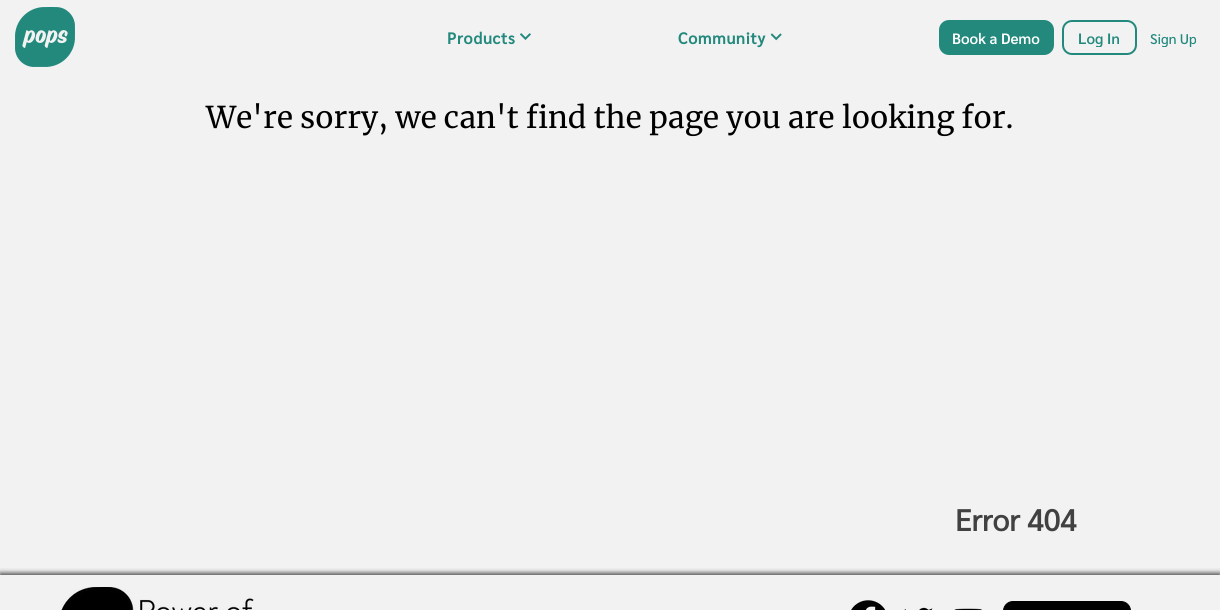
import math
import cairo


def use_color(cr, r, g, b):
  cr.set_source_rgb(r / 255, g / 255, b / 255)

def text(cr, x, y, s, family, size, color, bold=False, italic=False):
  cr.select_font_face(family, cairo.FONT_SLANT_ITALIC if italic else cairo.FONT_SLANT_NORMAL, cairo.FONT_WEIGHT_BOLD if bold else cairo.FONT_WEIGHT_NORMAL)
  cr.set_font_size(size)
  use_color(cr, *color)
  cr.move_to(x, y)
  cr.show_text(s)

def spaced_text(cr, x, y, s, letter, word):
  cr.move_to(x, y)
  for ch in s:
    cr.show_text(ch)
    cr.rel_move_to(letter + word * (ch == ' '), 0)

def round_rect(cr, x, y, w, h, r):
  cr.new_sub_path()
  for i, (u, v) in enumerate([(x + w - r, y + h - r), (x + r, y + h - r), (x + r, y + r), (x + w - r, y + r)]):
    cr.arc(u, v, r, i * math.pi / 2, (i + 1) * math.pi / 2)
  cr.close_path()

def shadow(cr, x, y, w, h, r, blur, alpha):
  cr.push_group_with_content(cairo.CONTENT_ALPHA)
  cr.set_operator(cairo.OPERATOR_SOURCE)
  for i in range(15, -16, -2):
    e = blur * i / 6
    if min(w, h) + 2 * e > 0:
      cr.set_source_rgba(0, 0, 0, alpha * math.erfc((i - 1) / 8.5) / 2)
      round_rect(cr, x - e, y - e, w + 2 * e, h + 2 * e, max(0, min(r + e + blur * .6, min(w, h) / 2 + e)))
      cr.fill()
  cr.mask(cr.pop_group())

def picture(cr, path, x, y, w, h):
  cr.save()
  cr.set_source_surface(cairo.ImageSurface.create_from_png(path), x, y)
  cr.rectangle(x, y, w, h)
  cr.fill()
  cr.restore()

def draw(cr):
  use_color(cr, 242, 242, 242)
  cr.paint()
  picture(cr, "img_01.png", 15, 7, 60, 60)
  picture(cr, "img_02.png", 520, 33, 11, 7)
  picture(cr, "img_03.png", 770, 33, 12, 8)
  use_color(cr, 35, 137, 125)
  round_rect(cr, 940, 21, 113, 33, 9)
  cr.fill_preserve()
  cr.stroke()
  round_rect(cr, 1063, 21, 73, 33, 9)
  cr.stroke()
  cr.save()
  cr.rectangle(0, 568, 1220, 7)
  cr.clip()
  use_color(cr, 0, 0, 0)
  shadow(cr, 0, 573, 1220, 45, 0, 2.5, 0.7)
  cr.restore()
  picture(cr, "img_04.png", 61, 587, 193, 23)
  picture(cr, "img_05.png", 851, 600, 35, 10)
  picture(cr, "img_06.png", 904, 607, 29, 3)
  picture(cr, "img_07.png", 954, 608, 28, 2)
  use_color(cr, 0, 0, 0)
  round_rect(cr, 1003.5, 601.5, 127, 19, 9.5)
  cr.fill_preserve()
  cr.set_line_width(1)
  cr.stroke()
  cr.select_font_face("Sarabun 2", cairo.FONT_SLANT_NORMAL, cairo.FONT_WEIGHT_BOLD)
  cr.set_font_size(16)
  use_color(cr, 35, 137, 125)
  spaced_text(cr, 447, 44, "Products", 0.75, 0)
  spaced_text(cr, 678, 44, "Community", 0.75, 0)
  text(cr, 952, 44, "Book a Demo", "Sarabun SemiBold", 15, (255, 255, 255))
  cr.save()
  cr.rectangle(1078, 28, 41, 19)
  cr.clip()
  text(cr, 1078, 44, "Log In", "Sarabun SemiBold", 15, (35, 137, 125))
  cr.restore()
  cr.save()
  cr.rectangle(1150, 29, 46, 18)
  cr.clip()
  text(cr, 1150, 44, "Sign Up", "Sarabun Medium", 14, (35, 137, 125))
  cr.restore()
  text(cr, 206, 128, "We're sorry, we can't find the page you are looking for.", "Merriweather", 30, (0, 0, 0))
  text(cr, 955, 531, "Error 404", "Sarabun", 30, (65, 65, 65), bold=True)


surface = cairo.ImageSurface(cairo.FORMAT_RGB24, 1220, 610)
cr = cairo.Context(surface)
options = cairo.FontOptions()
options.set_hint_metrics(cairo.HINT_METRICS_OFF)
options.set_hint_style(cairo.HINT_STYLE_NONE)
cr.set_font_options(options)
cr.set_miter_limit(4)
draw(cr)
surface.write_to_png("out.png")
